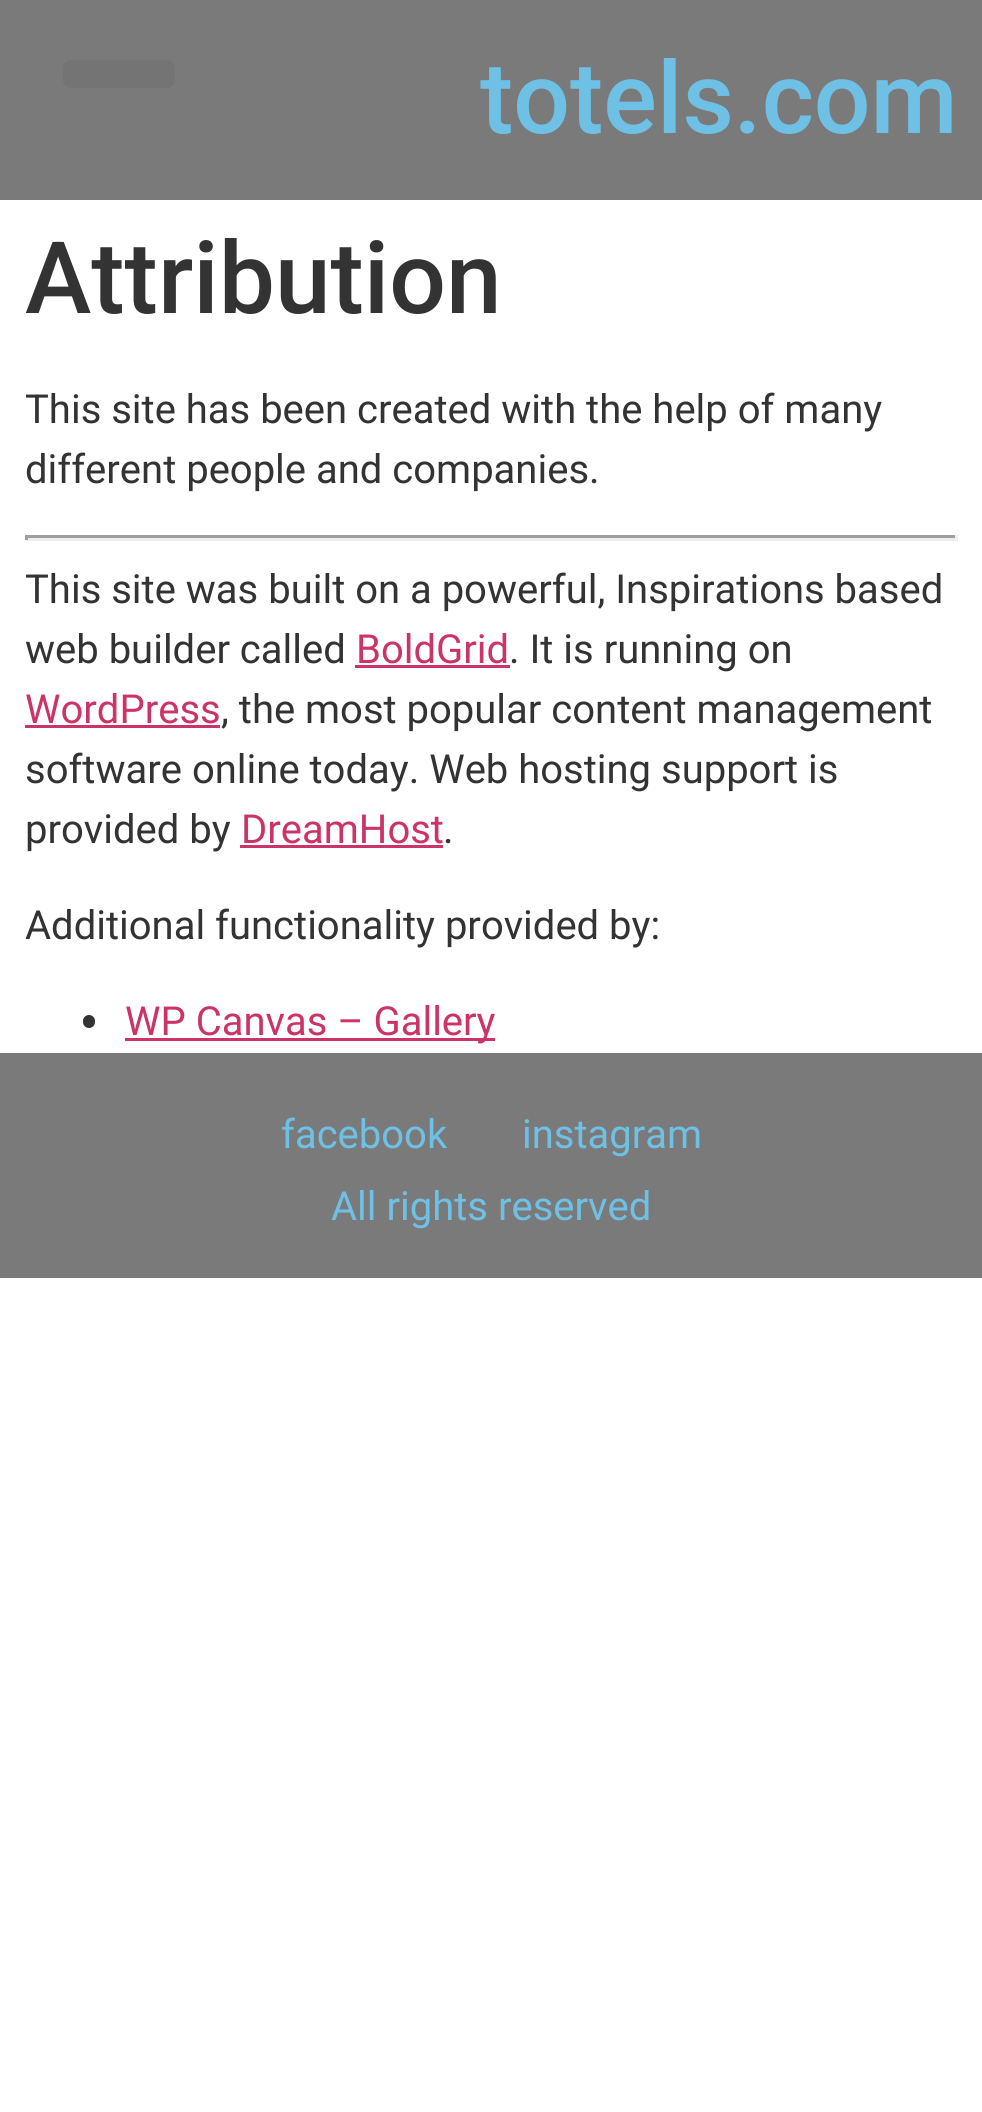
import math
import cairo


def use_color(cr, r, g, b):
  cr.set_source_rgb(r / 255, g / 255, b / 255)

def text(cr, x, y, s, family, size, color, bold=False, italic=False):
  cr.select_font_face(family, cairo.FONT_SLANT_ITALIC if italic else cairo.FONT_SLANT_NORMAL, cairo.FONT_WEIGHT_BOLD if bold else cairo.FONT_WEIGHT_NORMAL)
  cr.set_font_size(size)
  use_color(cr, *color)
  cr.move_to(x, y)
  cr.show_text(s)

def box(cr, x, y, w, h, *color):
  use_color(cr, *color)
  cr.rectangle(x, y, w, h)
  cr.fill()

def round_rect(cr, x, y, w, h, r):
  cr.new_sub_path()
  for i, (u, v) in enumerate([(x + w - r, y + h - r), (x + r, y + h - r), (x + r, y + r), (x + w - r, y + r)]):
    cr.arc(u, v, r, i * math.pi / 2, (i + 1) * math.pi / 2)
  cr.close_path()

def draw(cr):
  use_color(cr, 255, 255, 255)
  cr.paint()
  box(cr, 0, 0, 982, 200, 122, 122, 122)
  use_color(cr, 116, 116, 116)
  round_rect(cr, 63, 60, 112, 28, 8)
  cr.fill()
  box(cr, 25, 535, 933, 3, 159, 159, 159)
  box(cr, 955, 535, 3, 5, 238, 238, 238)
  box(cr, 25, 538, 933, 3, 238, 238, 238)
  box(cr, 25, 535, 3, 5, 159, 159, 159)
  box(cr, 355, 665, 155, 3, 204, 51, 102)
  box(cr, 25, 725, 195, 3, 204, 51, 102)
  box(cr, 240, 845, 203, 3, 204, 51, 102)
  use_color(cr, 51, 51, 51)
  round_rect(cr, 83, 1015, 12, 13, 6)
  cr.fill()
  box(cr, 125, 1038, 370, 3, 204, 51, 102)
  box(cr, 0, 1053, 982, 225, 122, 122, 122)
  text(cr, 480, 133, "totels.com", "Roboto Medium", 100, (110, 193, 228))
  text(cr, 25, 313, "Attribution", "Roboto Medium", 100, (51, 51, 51))
  text(cr, 25, 423, "This site has been created with the help of many", "Roboto", 40, (51, 51, 51))
  text(cr, 25, 483, "different people and companies.", "Roboto", 40, (51, 51, 51))
  text(cr, 25, 603, "This site was built on a powerful, Inspirations based", "Roboto", 40, (51, 51, 51))
  text(cr, 25, 663, "web builder called", "Roboto", 40, (51, 51, 51))
  text(cr, 356, 663, "BoldGrid", "Roboto", 40, (204, 51, 102))
  text(cr, 509, 663, ". It is running on", "Roboto", 40, (51, 51, 51))
  text(cr, 25, 723, "WordPress", "Roboto", 40, (204, 51, 102))
  text(cr, 221, 723, ", the most popular content management", "Roboto", 40, (51, 51, 51))
  text(cr, 25, 783, "software online today. Web hosting support is", "Roboto", 40, (51, 51, 51))
  text(cr, 25, 843, "provided by", "Roboto", 40, (51, 51, 51))
  text(cr, 241, 843, "DreamHost", "Roboto", 40, (204, 51, 102))
  text(cr, 443, 843, ".", "Roboto", 40, (51, 51, 51))
  text(cr, 25, 939, "Additional functionality provided by:", "Roboto", 40, (51, 51, 51))
  text(cr, 125, 1035, "WP Canvas – Gallery", "Roboto", 40, (204, 51, 102))
  text(cr, 281, 1148, "facebook", "Roboto", 40, (110, 193, 228))
  text(cr, 522, 1148, "instagram", "Roboto", 40, (110, 193, 228))
  text(cr, 331, 1220, "All rights reserved", "Roboto", 40, (110, 193, 228))


surface = cairo.ImageSurface(cairo.FORMAT_RGB24, 982, 2112)
cr = cairo.Context(surface)
options = cairo.FontOptions()
options.set_hint_metrics(cairo.HINT_METRICS_OFF)
options.set_hint_style(cairo.HINT_STYLE_NONE)
cr.set_font_options(options)
cr.set_miter_limit(4)
draw(cr)
surface.write_to_png("out.png")
